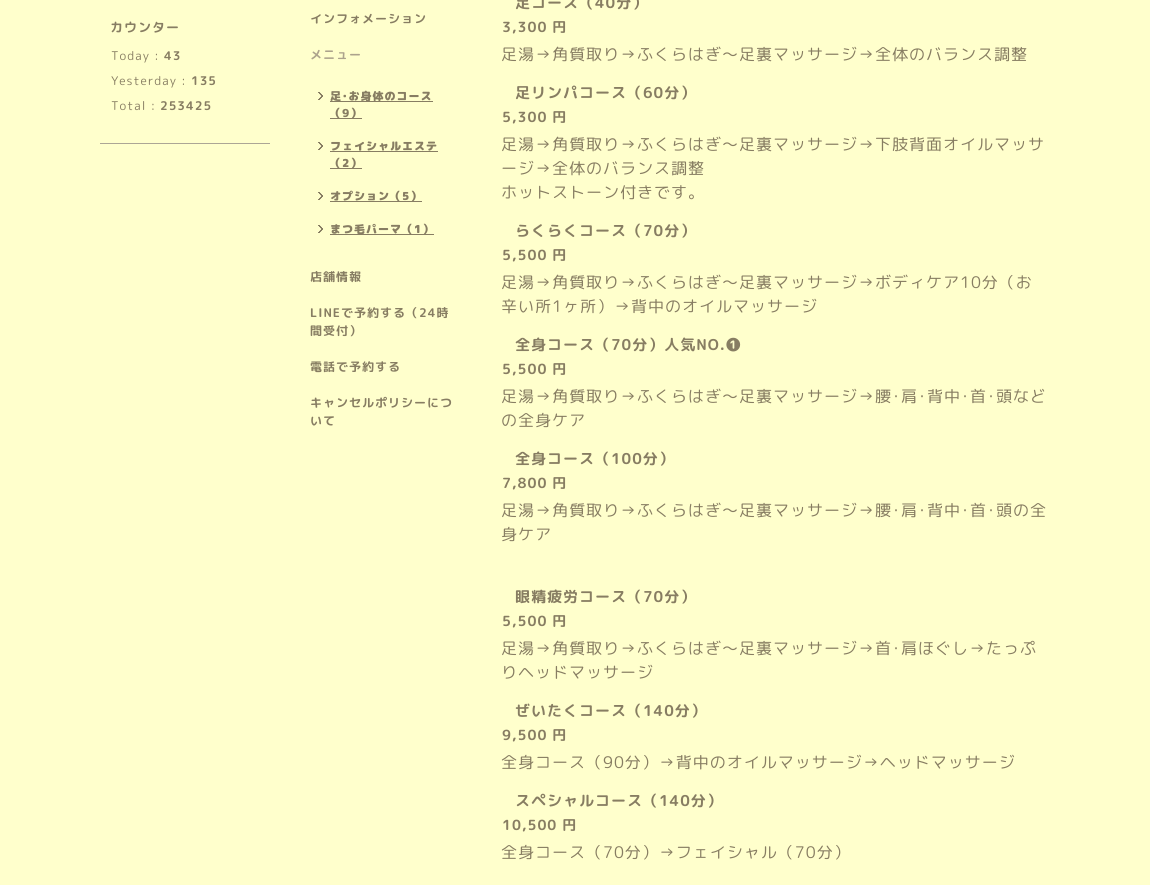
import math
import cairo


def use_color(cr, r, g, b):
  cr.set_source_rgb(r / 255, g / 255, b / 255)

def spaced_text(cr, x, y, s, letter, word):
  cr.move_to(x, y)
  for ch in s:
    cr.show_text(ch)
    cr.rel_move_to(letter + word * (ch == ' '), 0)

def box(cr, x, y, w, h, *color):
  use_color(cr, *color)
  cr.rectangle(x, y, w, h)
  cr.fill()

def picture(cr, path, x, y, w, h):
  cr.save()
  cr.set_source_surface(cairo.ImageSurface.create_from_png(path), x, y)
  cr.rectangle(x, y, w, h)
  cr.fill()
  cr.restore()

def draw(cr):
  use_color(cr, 255, 255, 204)
  cr.paint()
  box(cr, 100, 143, 170, 1, 172, 166, 149)
  picture(cr, "img_01.png", 318, 92, 5, 8)
  box(cr, 330, 101, 103, 1, 135, 125, 98)
  box(cr, 330, 118, 32, 1, 135, 125, 98)
  picture(cr, "img_01.png", 318, 142, 5, 8)
  box(cr, 330, 151, 108, 1, 135, 125, 98)
  box(cr, 330, 168, 32, 1, 135, 125, 98)
  picture(cr, "img_01.png", 318, 192, 5, 8)
  box(cr, 330, 201, 92, 1, 135, 125, 98)
  picture(cr, "img_01.png", 318, 225, 5, 8)
  box(cr, 330, 234, 104, 1, 135, 125, 98)
  cr.select_font_face("Rounded Mplus 1c Bold", cairo.FONT_SLANT_NORMAL, cairo.FONT_WEIGHT_BOLD)
  cr.set_font_size(13)
  spaced_text(cr, 110, 32, "カウンター", 1, 0)
  cr.select_font_face("Rounded Mplus 1c")
  cr.set_font_size(12)
  spaced_text(cr, 111, 60, "Today :", 1, 0)
  cr.select_font_face("Rounded Mplus 1c Bold", cairo.FONT_SLANT_NORMAL, cairo.FONT_WEIGHT_BOLD)
  spaced_text(cr, 164, 60, "43", 1, 0)
  cr.select_font_face("Rounded Mplus 1c")
  spaced_text(cr, 111, 85, "Yesterday :", 1, 0)
  cr.select_font_face("Rounded Mplus 1c Bold", cairo.FONT_SLANT_NORMAL, cairo.FONT_WEIGHT_BOLD)
  spaced_text(cr, 191, 85, "135", 1, 0)
  cr.select_font_face("Rounded Mplus 1c")
  spaced_text(cr, 111, 110, "Total :", 1, 0)
  cr.select_font_face("Rounded Mplus 1c Bold", cairo.FONT_SLANT_NORMAL, cairo.FONT_WEIGHT_BOLD)
  spaced_text(cr, 160, 110, "253425", 1, 0)
  spaced_text(cr, 310, 23, "インフォメーション", 1, 0)
  use_color(cr, 172, 163, 140)
  spaced_text(cr, 310, 59, "メニュー", 1, 0)
  cr.select_font_face("Rounded Mplus 1c Black")
  cr.set_font_size(11)
  use_color(cr, 135, 125, 98)
  spaced_text(cr, 330, 100, "足･お身体のコース", 1, 0)
  spaced_text(cr, 330, 117, "（9）", 1, 0)
  spaced_text(cr, 330, 150, "フェイシャルエステ", 1, 0)
  spaced_text(cr, 330, 167, "（2）", 1, 0)
  spaced_text(cr, 330, 200, "オプション（5）", 1, 0)
  spaced_text(cr, 330, 233, "まつ毛パーマ（1）", 1, 0)
  cr.select_font_face("Rounded Mplus 1c Bold", cairo.FONT_SLANT_NORMAL, cairo.FONT_WEIGHT_BOLD)
  cr.set_font_size(12)
  spaced_text(cr, 310, 281, "店舗情報", 1, 0)
  spaced_text(cr, 310, 317, "LINEで予約する（24時", 1, 0)
  spaced_text(cr, 310, 335, "間受付）", 1, 0)
  spaced_text(cr, 310, 371, "電話で予約する", 1, 0)
  spaced_text(cr, 310, 407, "キャンセルポリシーにつ", 1, 0)
  spaced_text(cr, 310, 425, "いて", 1, 0)
  cr.set_font_size(15)
  spaced_text(cr, 515, 8, "足コース（40分）", 1, 0)
  cr.set_font_size(14)
  spaced_text(cr, 502, 32, "3,300 円", 1, 0)
  cr.select_font_face("Rounded Mplus 1c")
  cr.set_font_size(16)
  spaced_text(cr, 501, 60, "足湯→角質取り→ふくらはぎ～足裏マッサージ→全体のバランス調整", 1, 0)
  cr.select_font_face("Rounded Mplus 1c Bold", cairo.FONT_SLANT_NORMAL, cairo.FONT_WEIGHT_BOLD)
  cr.set_font_size(15)
  spaced_text(cr, 515, 98, "足リンパコース（60分）", 1, 0)
  cr.set_font_size(14)
  spaced_text(cr, 502, 122, "5,300 円", 1, 0)
  cr.select_font_face("Rounded Mplus 1c")
  cr.set_font_size(16)
  spaced_text(cr, 501, 150, "足湯→角質取り→ふくらはぎ～足裏マッサージ→下肢背面オイルマッサ", 1, 0)
  spaced_text(cr, 501, 174, "ージ→全体のバランス調整", 1, 0)
  spaced_text(cr, 501, 198, "ホットストーン付きです。", 1, 0)
  cr.select_font_face("Rounded Mplus 1c Bold", cairo.FONT_SLANT_NORMAL, cairo.FONT_WEIGHT_BOLD)
  cr.set_font_size(15)
  spaced_text(cr, 515, 236, "らくらくコース（70分）", 1, 0)
  cr.set_font_size(14)
  spaced_text(cr, 502, 260, "5,500 円", 1, 0)
  cr.select_font_face("Rounded Mplus 1c")
  cr.set_font_size(16)
  spaced_text(cr, 501, 288, "足湯→角質取り→ふくらはぎ～足裏マッサージ→ボディケア10分（お", 1, 0)
  spaced_text(cr, 501, 312, "辛い所1ヶ所）→背中のオイルマッサージ", 1, 0)
  cr.select_font_face("Rounded Mplus 1c Bold", cairo.FONT_SLANT_NORMAL, cairo.FONT_WEIGHT_BOLD)
  cr.set_font_size(15)
  spaced_text(cr, 515, 350, "全身コース（70分）人気NO.❶", 1, 0)
  cr.set_font_size(14)
  spaced_text(cr, 502, 374, "5,500 円", 1, 0)
  cr.select_font_face("Rounded Mplus 1c")
  cr.set_font_size(16)
  spaced_text(cr, 501, 402, "足湯→角質取り→ふくらはぎ～足裏マッサージ→腰･肩･背中･首･頭など", 1, 0)
  spaced_text(cr, 501, 426, "の全身ケア", 1, 0)
  cr.select_font_face("Rounded Mplus 1c Bold", cairo.FONT_SLANT_NORMAL, cairo.FONT_WEIGHT_BOLD)
  cr.set_font_size(15)
  spaced_text(cr, 515, 464, "全身コース（100分）", 1, 0)
  cr.set_font_size(14)
  spaced_text(cr, 502, 488, "7,800 円", 1, 0)
  cr.select_font_face("Rounded Mplus 1c")
  cr.set_font_size(16)
  spaced_text(cr, 501, 516, "足湯→角質取り→ふくらはぎ～足裏マッサージ→腰･肩･背中･首･頭の全", 1, 0)
  spaced_text(cr, 501, 540, "身ケア", 1, 0)
  cr.select_font_face("Rounded Mplus 1c Bold", cairo.FONT_SLANT_NORMAL, cairo.FONT_WEIGHT_BOLD)
  cr.set_font_size(15)
  spaced_text(cr, 515, 602, "眼精疲労コース（70分）", 1, 0)
  cr.set_font_size(14)
  spaced_text(cr, 502, 626, "5,500 円", 1, 0)
  cr.select_font_face("Rounded Mplus 1c")
  cr.set_font_size(16)
  spaced_text(cr, 501, 654, "足湯→角質取り→ふくらはぎ～足裏マッサージ→首･肩ほぐし→たっぷ", 1, 0)
  spaced_text(cr, 501, 678, "りヘッドマッサージ", 1, 0)
  cr.select_font_face("Rounded Mplus 1c Bold", cairo.FONT_SLANT_NORMAL, cairo.FONT_WEIGHT_BOLD)
  cr.set_font_size(15)
  spaced_text(cr, 515, 716, "ぜいたくコース（140分）", 1, 0)
  cr.set_font_size(14)
  spaced_text(cr, 502, 740, "9,500 円", 1, 0)
  cr.select_font_face("Rounded Mplus 1c")
  cr.set_font_size(16)
  spaced_text(cr, 501, 768, "全身コース（90分）→背中のオイルマッサージ→ヘッドマッサージ", 1, 0)
  cr.select_font_face("Rounded Mplus 1c Bold", cairo.FONT_SLANT_NORMAL, cairo.FONT_WEIGHT_BOLD)
  cr.set_font_size(15)
  spaced_text(cr, 515, 806, "スペシャルコース（140分）", 1, 0)
  cr.set_font_size(14)
  spaced_text(cr, 502, 830, "10,500 円", 1, 0)
  cr.select_font_face("Rounded Mplus 1c")
  cr.set_font_size(16)
  spaced_text(cr, 501, 858, "全身コース（70分）→フェイシャル（70分）", 1, 0)


surface = cairo.ImageSurface(cairo.FORMAT_RGB24, 1150, 885)
cr = cairo.Context(surface)
options = cairo.FontOptions()
options.set_hint_metrics(cairo.HINT_METRICS_OFF)
options.set_hint_style(cairo.HINT_STYLE_NONE)
cr.set_font_options(options)
cr.set_miter_limit(4)
draw(cr)
surface.write_to_png("out.png")
